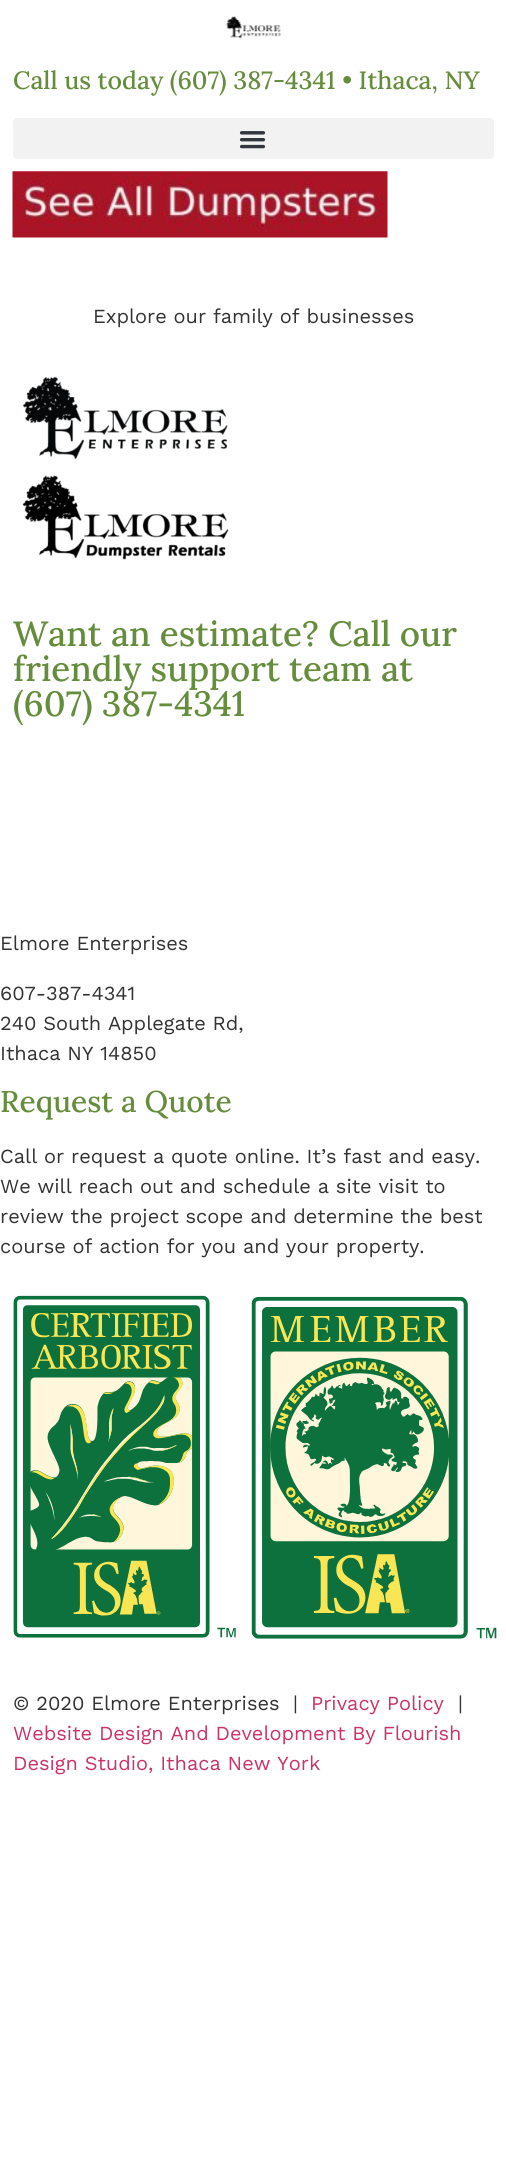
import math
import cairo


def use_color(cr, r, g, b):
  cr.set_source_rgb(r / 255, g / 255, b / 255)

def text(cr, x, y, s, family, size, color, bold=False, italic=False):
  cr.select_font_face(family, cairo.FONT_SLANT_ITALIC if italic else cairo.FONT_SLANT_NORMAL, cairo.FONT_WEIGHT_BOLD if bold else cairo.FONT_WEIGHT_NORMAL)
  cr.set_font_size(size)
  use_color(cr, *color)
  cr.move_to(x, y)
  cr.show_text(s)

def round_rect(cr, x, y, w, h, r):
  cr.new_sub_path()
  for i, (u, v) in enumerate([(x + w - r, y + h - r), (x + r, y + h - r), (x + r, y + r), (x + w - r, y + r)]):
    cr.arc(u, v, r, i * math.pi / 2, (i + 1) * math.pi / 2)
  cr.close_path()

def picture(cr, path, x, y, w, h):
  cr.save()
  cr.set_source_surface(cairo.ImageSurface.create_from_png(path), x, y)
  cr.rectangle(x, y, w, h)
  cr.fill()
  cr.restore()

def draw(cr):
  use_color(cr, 255, 255, 255)
  cr.paint()
  picture(cr, "img_01.png", 226, 16, 55, 23)
  use_color(cr, 242, 242, 242)
  round_rect(cr, 13, 118, 481, 41, 4)
  cr.fill()
  picture(cr, "img_02.png", 239, 131, 27, 18)
  picture(cr, "img_03.png", 12, 171, 376, 67)
  picture(cr, "img_04.png", 23, 376, 205, 83)
  picture(cr, "img_05.png", 22, 475, 207, 85)
  picture(cr, "img_06.png", 13, 1295, 484, 344)
  text(cr, 13, 89, "Call us today (607) 387-4341 • Ithaca, NY", "Lora Medium", 25, (102, 141, 61))
  text(cr, 93, 323, "Explore our family of businesses", "Work Sans", 20, (51, 51, 51))
  text(cr, 13, 646, "Want an estimate? Call our", "Lora Medium", 35, (102, 141, 61))
  text(cr, 13, 681, "friendly support team at", "Lora Medium", 35, (102, 141, 61))
  text(cr, 13, 716, "(607) 387-4341", "Lora Medium", 35, (102, 141, 61))
  text(cr, 0, 950, "Elmore Enterprises", "Work Sans", 20, (51, 51, 51))
  text(cr, 0, 1000, "607-387-4341", "Work Sans", 20, (51, 51, 51))
  text(cr, 0, 1030, "240 South Applegate Rd,", "Work Sans", 20, (51, 51, 51))
  text(cr, 0, 1060, "Ithaca NY 14850", "Work Sans", 20, (51, 51, 51))
  text(cr, 0, 1112, "Request a Quote", "Lora Medium", 30, (102, 141, 61))
  text(cr, 0, 1163, "Call or request a quote online. It’s fast and easy.", "Work Sans", 20, (51, 51, 51))
  text(cr, 0, 1193, "We will reach out and schedule a site visit to", "Work Sans", 20, (51, 51, 51))
  text(cr, 0, 1223, "review the project scope and determine the best", "Work Sans", 20, (51, 51, 51))
  text(cr, 0, 1253, "course of action for you and your property.", "Work Sans", 20, (51, 51, 51))
  text(cr, 13, 1710, "© 2020 Elmore Enterprises", "Work Sans", 20, (51, 51, 51))
  text(cr, 293, 1710, "|", "Work Sans", 20, (51, 51, 51))
  text(cr, 311, 1710, "Privacy Policy", "Work Sans", 20, (204, 51, 102))
  text(cr, 458, 1710, "|", "Work Sans", 20, (51, 51, 51))
  text(cr, 13, 1740, "Website Design And Development By Flourish", "Work Sans", 20, (204, 51, 102))
  text(cr, 13, 1770, "Design Studio, Ithaca New York", "Work Sans", 20, (204, 51, 102))


surface = cairo.ImageSurface(cairo.FORMAT_RGB24, 506, 2182)
cr = cairo.Context(surface)
options = cairo.FontOptions()
options.set_hint_metrics(cairo.HINT_METRICS_OFF)
options.set_hint_style(cairo.HINT_STYLE_NONE)
cr.set_font_options(options)
cr.set_miter_limit(4)
draw(cr)
surface.write_to_png("out.png")
